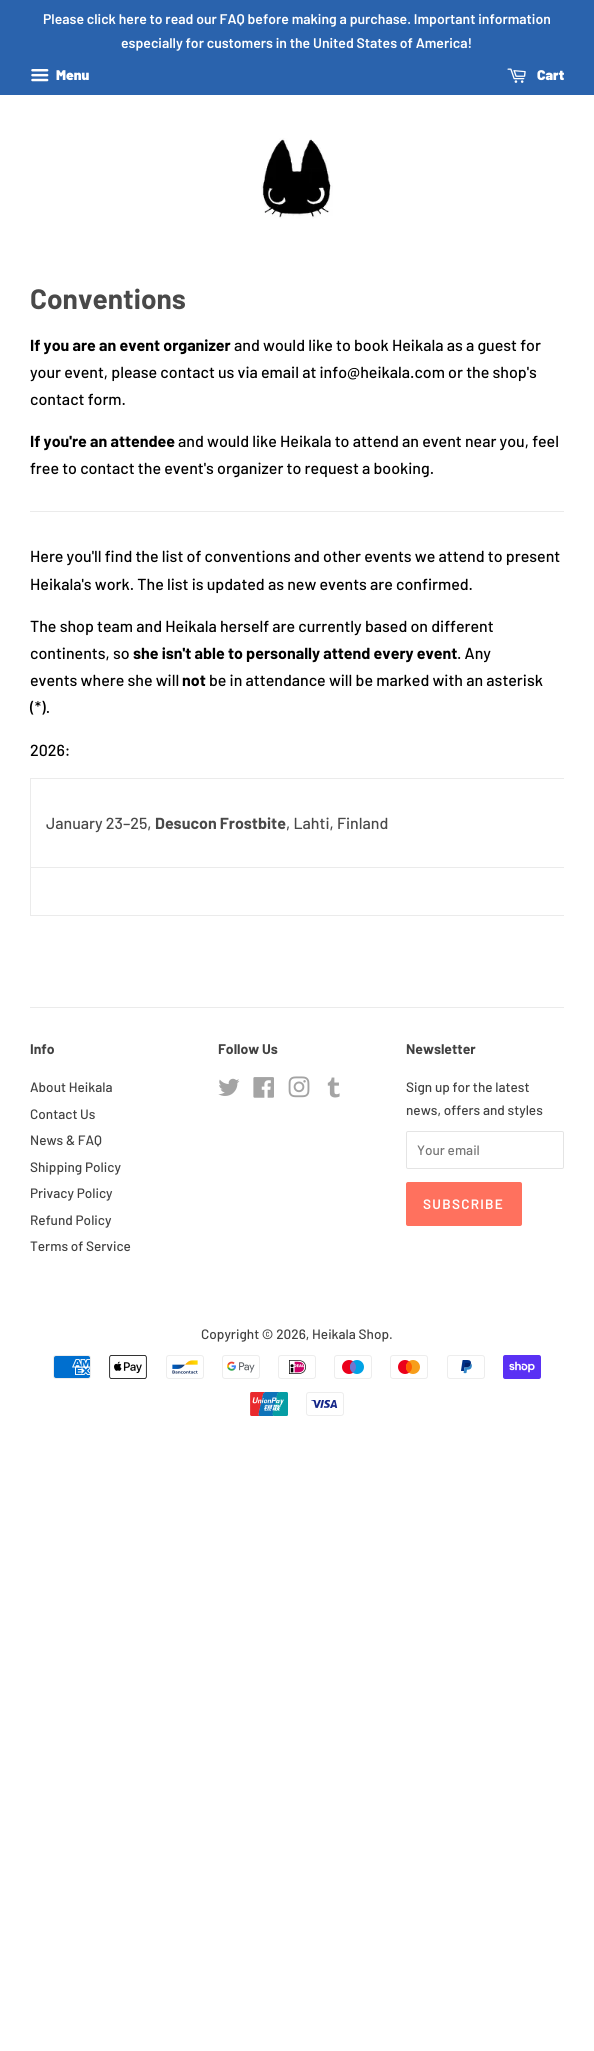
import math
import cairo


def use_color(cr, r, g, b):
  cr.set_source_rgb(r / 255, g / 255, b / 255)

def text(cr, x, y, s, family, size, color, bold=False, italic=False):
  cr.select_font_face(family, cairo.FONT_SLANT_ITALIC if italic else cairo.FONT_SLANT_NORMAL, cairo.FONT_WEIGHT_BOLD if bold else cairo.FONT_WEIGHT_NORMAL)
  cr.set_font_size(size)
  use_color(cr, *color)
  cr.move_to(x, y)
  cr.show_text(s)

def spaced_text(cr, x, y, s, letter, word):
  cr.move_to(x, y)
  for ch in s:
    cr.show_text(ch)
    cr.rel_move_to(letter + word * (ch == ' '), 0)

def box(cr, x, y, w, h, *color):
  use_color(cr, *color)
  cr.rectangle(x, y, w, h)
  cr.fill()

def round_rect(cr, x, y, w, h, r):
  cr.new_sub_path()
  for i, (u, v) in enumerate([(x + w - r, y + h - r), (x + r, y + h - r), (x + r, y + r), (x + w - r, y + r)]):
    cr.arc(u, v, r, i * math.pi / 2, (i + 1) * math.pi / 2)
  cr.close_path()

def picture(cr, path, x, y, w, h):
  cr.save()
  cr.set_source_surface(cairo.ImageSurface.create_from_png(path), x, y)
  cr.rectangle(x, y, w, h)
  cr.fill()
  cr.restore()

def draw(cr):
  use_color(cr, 255, 255, 255)
  cr.paint()
  box(cr, 0, 0, 594, 95, 42, 99, 173)
  picture(cr, "img_01.png", 31, 69, 18, 13)
  picture(cr, "img_02.png", 507, 68, 19, 15)
  picture(cr, "img_03.png", 261, 138, 72, 81)
  box(cr, 30, 511, 534, 1, 235, 235, 235)
  box(cr, 30, 778, 534, 1, 235, 235, 235)
  box(cr, 30, 867, 534, 1, 235, 235, 235)
  box(cr, 30, 915, 534, 1, 235, 235, 235)
  box(cr, 30, 867, 1, 49, 235, 235, 235)
  box(cr, 30, 778, 1, 90, 235, 235, 235)
  box(cr, 30, 1007, 534, 1, 235, 235, 235)
  picture(cr, "img_04.png", 218, 1078, 22, 18)
  picture(cr, "img_05.png", 253, 1077, 21, 21)
  picture(cr, "img_06.png", 288, 1076, 22, 22)
  picture(cr, "img_07.png", 327, 1077, 13, 21)
  round_rect(cr, 406.5, 1131.5, 157, 37, 1.5)
  use_color(cr, 228, 228, 228)
  cr.set_line_width(1)
  cr.stroke()
  use_color(cr, 255, 113, 94)
  round_rect(cr, 406, 1182, 116, 44, 2)
  cr.fill()
  picture(cr, "img_08.png", 53, 1355, 38, 24)
  picture(cr, "img_09.png", 109, 1355, 38, 24)
  picture(cr, "img_10.png", 166, 1355, 38, 24)
  picture(cr, "img_11.png", 222, 1355, 38, 24)
  picture(cr, "img_12.png", 278, 1355, 38, 24)
  picture(cr, "img_13.png", 334, 1355, 38, 24)
  picture(cr, "img_14.png", 390, 1355, 38, 24)
  picture(cr, "img_15.png", 447, 1355, 38, 24)
  picture(cr, "img_16.png", 503, 1355, 38, 24)
  picture(cr, "img_17.png", 250, 1392, 38, 24)
  picture(cr, "img_18.png", 306, 1392, 38, 24)
  text(cr, 43, 24, "Please click here to read our FAQ before making a purchase. Important information", "Barlow SemiBold", 14, (255, 255, 255))
  text(cr, 121, 48, "especially for customers in the United States of America!", "Barlow SemiBold", 14, (255, 255, 255))
  text(cr, 56, 80, "Menu", "Barlow Black", 14, (255, 255, 255))
  text(cr, 537, 80, "Cart", "Barlow Black", 14, (255, 255, 255))
  text(cr, 30, 309, "Conventions", "Barlow", 28, (73, 73, 73), bold=True)
  text(cr, 30, 351, "If you are an event organizer", "Barlow", 16, (0, 0, 0), bold=True)
  text(cr, 234, 351, "and would like to book Heikala as a guest for", "Barlow Medium", 16, (0, 0, 0))
  text(cr, 30, 378, "your event, please contact us via email at info@heikala.com or the shop's", "Barlow Medium", 16, (0, 0, 0))
  text(cr, 30, 405, "contact form.", "Barlow Medium", 16, (0, 0, 0))
  text(cr, 30, 447, "If you're an attendee", "Barlow", 16, (0, 0, 0), bold=True)
  text(cr, 178, 447, "and would like Heikala to attend an event near you, feel", "Barlow Medium", 16, (0, 0, 0))
  text(cr, 30, 474, "free to contact the event's organizer to request a booking.", "Barlow Medium", 16, (0, 0, 0))
  text(cr, 30, 562, "Here you'll find the list of conventions and other events we attend to present", "Barlow Medium", 16, (0, 0, 0))
  text(cr, 30, 590, "Heikala's work. The list is updated as new events are confirmed.", "Barlow Medium", 16, (0, 0, 0))
  text(cr, 30, 632, "The shop team and Heikala herself are currently based on different", "Barlow Medium", 16, (0, 0, 0))
  text(cr, 30, 659, "continents, so", "Barlow Medium", 16, (0, 0, 0))
  text(cr, 133, 659, "she isn't able to personally attend every event", "Barlow", 16, (0, 0, 0), bold=True)
  text(cr, 457, 659, ". Any", "Barlow Medium", 16, (0, 0, 0))
  text(cr, 30, 686, "events where she will", "Barlow Medium", 16, (0, 0, 0))
  text(cr, 182, 686, "not", "Barlow", 16, (0, 0, 0), bold=True)
  text(cr, 209, 686, "be in attendance will be marked with an asterisk", "Barlow Medium", 16, (0, 0, 0))
  text(cr, 30, 713, "(*).", "Barlow Medium", 16, (0, 0, 0))
  text(cr, 30, 756, "2026:", "Barlow Medium", 16, (0, 0, 0))
  text(cr, 46, 829, "January 23–25,", "Barlow Medium", 16, (73, 73, 73))
  text(cr, 155, 829, "Desucon Frostbite", "Barlow", 16, (73, 73, 73), bold=True)
  text(cr, 286, 829, ", Lahti, Finland", "Barlow Medium", 16, (73, 73, 73))
  text(cr, 30, 1054, "Info", "Barlow", 14, (65, 65, 65), bold=True)
  text(cr, 30, 1092, "About Heikala", "Barlow Medium", 13.6, (65, 65, 65))
  text(cr, 30, 1119, "Contact Us", "Barlow Medium", 13.6, (65, 65, 65))
  text(cr, 30, 1145, "News & FAQ", "Barlow Medium", 13.6, (65, 65, 65))
  text(cr, 30, 1172, "Shipping Policy", "Barlow Medium", 13.6, (65, 65, 65))
  text(cr, 30, 1198, "Privacy Policy", "Barlow Medium", 13.6, (65, 65, 65))
  text(cr, 30, 1225, "Refund Policy", "Barlow Medium", 13.6, (65, 65, 65))
  text(cr, 30, 1251, "Terms of Service", "Barlow Medium", 13.6, (65, 65, 65))
  text(cr, 218, 1054, "Follow Us", "Barlow", 14, (65, 65, 65), bold=True)
  text(cr, 406, 1054, "Newsletter", "Barlow", 14, (65, 65, 65), bold=True)
  text(cr, 406, 1092, "Sign up for the latest", "Barlow Medium", 13.6, (65, 65, 65))
  text(cr, 406, 1115, "news, offers and styles", "Barlow Medium", 13.6, (65, 65, 65))
  text(cr, 417, 1155, "Your email", "Barlow Medium", 13.6, (117, 117, 117))
  cr.select_font_face("Barlow SemiBold")
  use_color(cr, 255, 255, 255)
  spaced_text(cr, 423, 1209, "SUBSCRIBE", 1.25, 0)
  text(cr, 201, 1339, "Copyright © 2026, Heikala Shop.", "Barlow Medium", 13.6, (65, 65, 65))


surface = cairo.ImageSurface(cairo.FORMAT_RGB24, 594, 2051)
cr = cairo.Context(surface)
options = cairo.FontOptions()
options.set_hint_metrics(cairo.HINT_METRICS_OFF)
options.set_hint_style(cairo.HINT_STYLE_NONE)
cr.set_font_options(options)
cr.set_miter_limit(4)
draw(cr)
surface.write_to_png("out.png")
